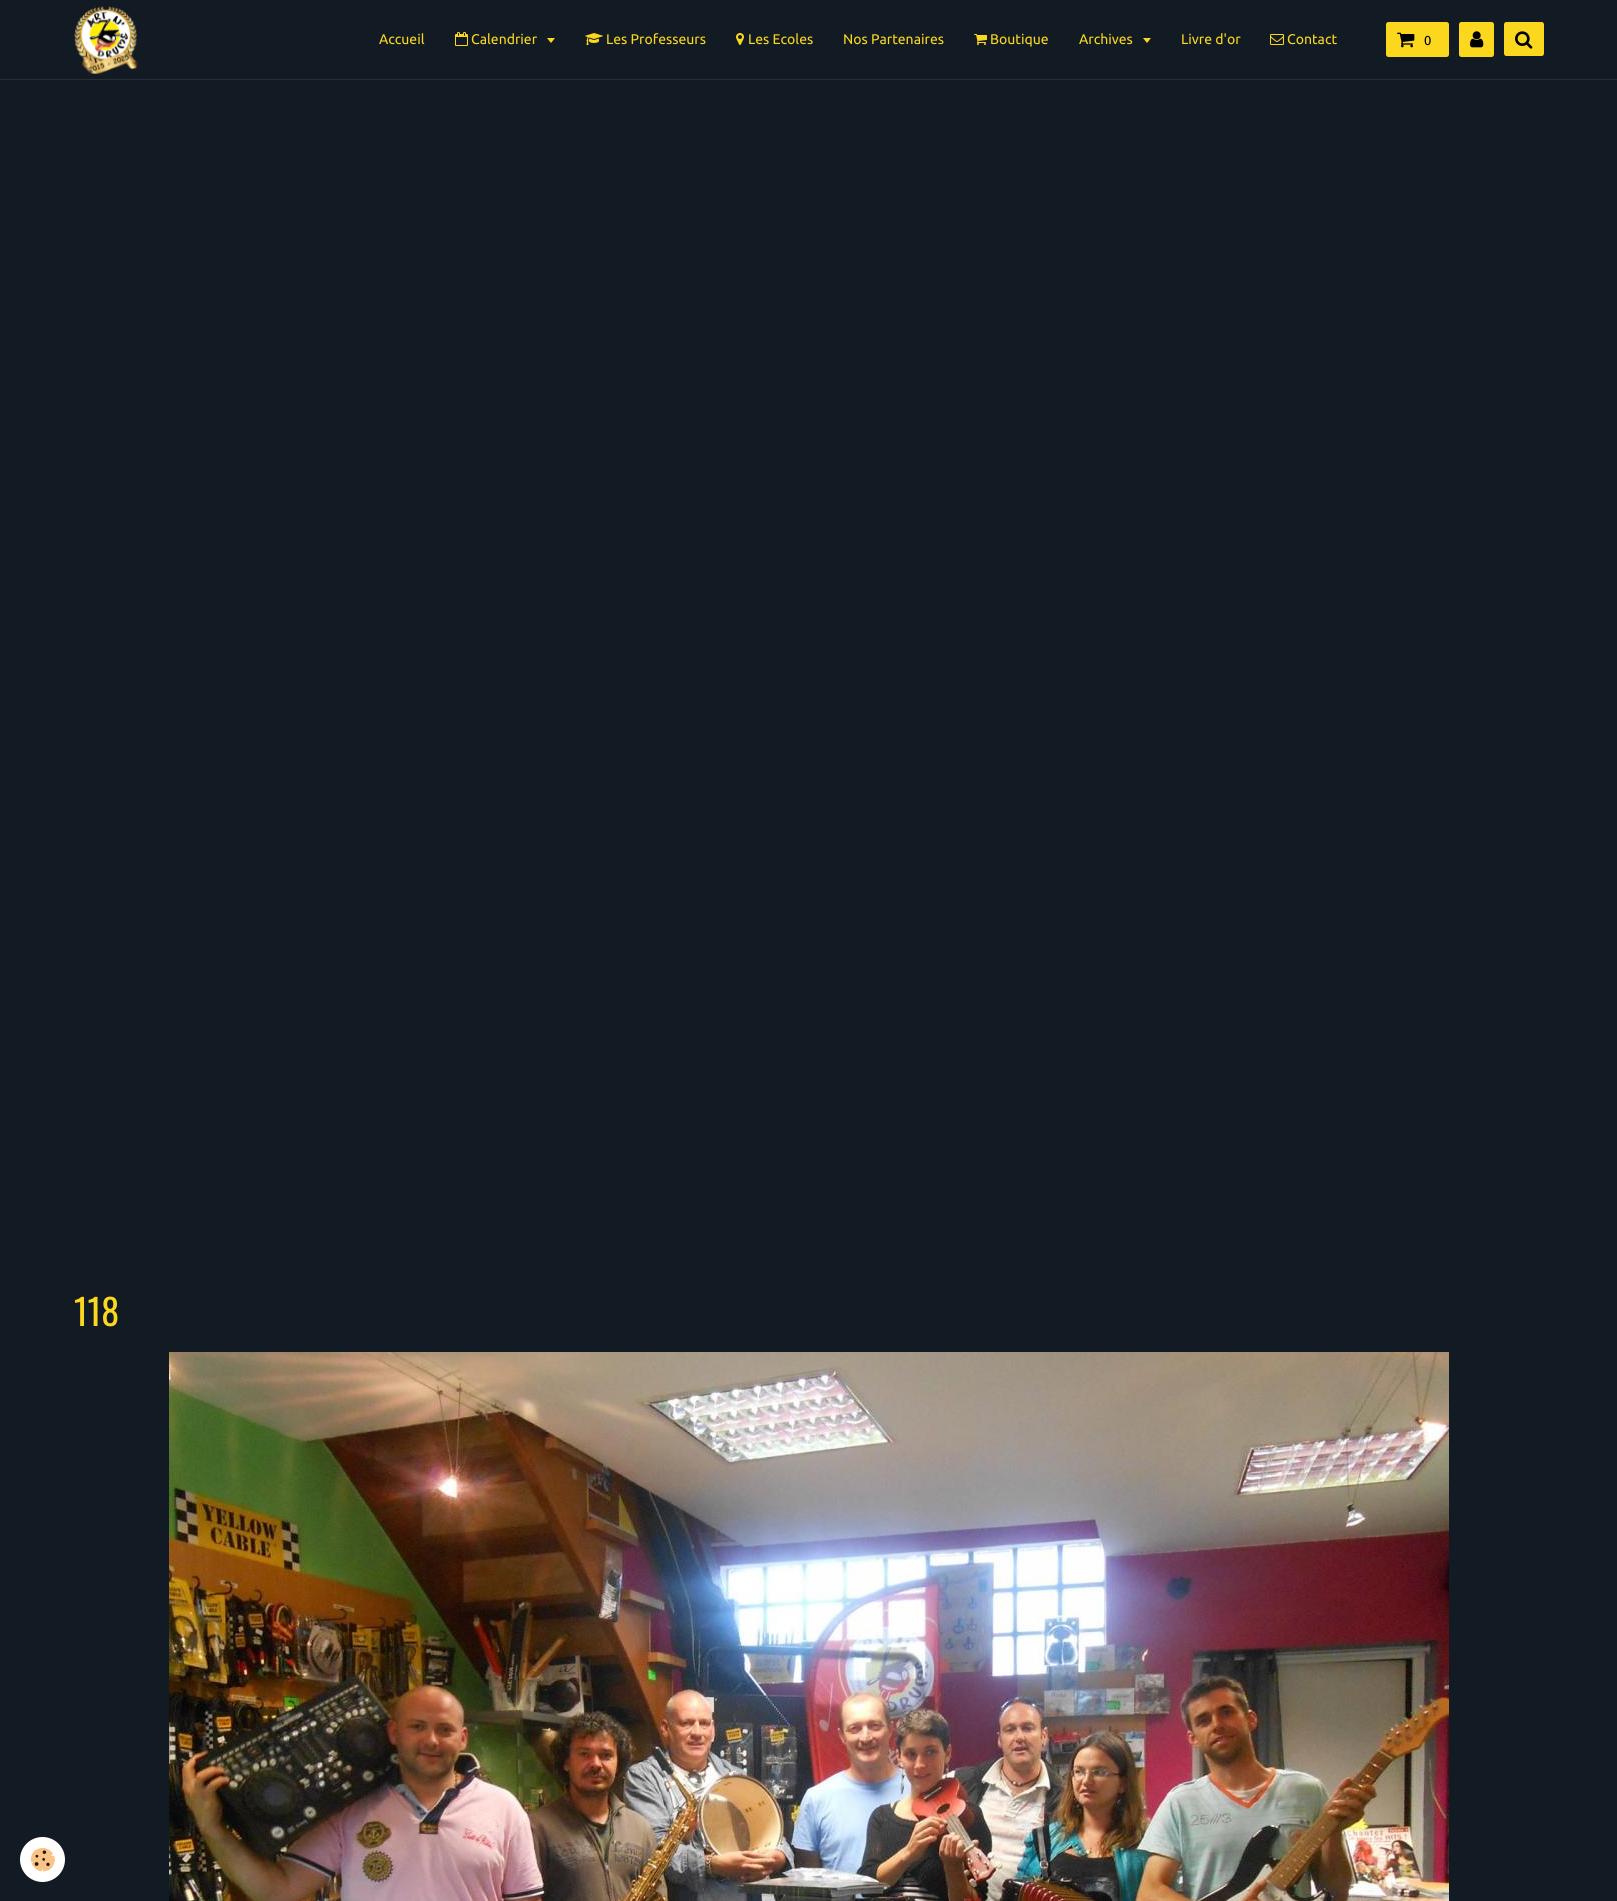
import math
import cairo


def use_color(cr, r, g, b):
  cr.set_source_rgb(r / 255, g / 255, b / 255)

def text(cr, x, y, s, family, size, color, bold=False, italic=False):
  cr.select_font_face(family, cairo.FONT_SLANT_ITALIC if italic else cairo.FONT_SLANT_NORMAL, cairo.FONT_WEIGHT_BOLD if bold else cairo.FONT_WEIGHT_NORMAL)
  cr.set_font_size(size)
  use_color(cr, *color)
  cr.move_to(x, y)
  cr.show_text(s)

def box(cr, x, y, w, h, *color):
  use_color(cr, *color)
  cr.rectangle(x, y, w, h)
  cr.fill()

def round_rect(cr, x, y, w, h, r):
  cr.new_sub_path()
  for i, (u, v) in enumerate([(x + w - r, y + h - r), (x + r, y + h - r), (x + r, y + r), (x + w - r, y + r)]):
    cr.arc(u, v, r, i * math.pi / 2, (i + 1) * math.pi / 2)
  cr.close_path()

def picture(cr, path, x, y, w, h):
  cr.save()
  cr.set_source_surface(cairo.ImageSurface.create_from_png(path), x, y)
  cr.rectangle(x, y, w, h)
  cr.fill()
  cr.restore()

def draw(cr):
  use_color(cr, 18, 27, 36)
  cr.paint()
  box(cr, 0, 79, 1617, 1, 40, 46, 51)
  picture(cr, "img_01.png", 74, 6, 64, 68)
  picture(cr, "img_02.png", 455, 32, 13, 14)
  use_color(cr, 251, 216, 30)
  cr.new_path()
  cr.move_to(547, 38)
  cr.line_to(555, 38)
  cr.line_to(551, 43)
  cr.close_path()
  cr.fill()
  picture(cr, "img_03.png", 585, 33, 18, 12)
  picture(cr, "img_04.png", 736, 33, 8, 12)
  picture(cr, "img_05.png", 974, 34, 13, 11)
  cr.new_path()
  cr.move_to(1143, 38)
  cr.line_to(1151, 38)
  cr.line_to(1147, 43)
  cr.close_path()
  cr.fill()
  picture(cr, "img_06.png", 1270, 34, 14, 11)
  round_rect(cr, 1386, 22, 63, 35, 2.5)
  cr.fill()
  picture(cr, "img_07.png", 1397, 32, 18, 16)
  round_rect(cr, 1459, 22, 35, 35, 2.5)
  cr.fill()
  picture(cr, "img_08.png", 1470, 31, 14, 17)
  round_rect(cr, 1504, 22, 40, 34, 2.5)
  cr.fill()
  picture(cr, "img_09.png", 1515, 31, 18, 18)
  picture(cr, "img_10.png", 169, 1352, 1280, 549)
  use_color(cr, 255, 255, 255)
  cr.arc(42.5, 1859.5, 22.5, 0, 2 * math.pi)
  cr.fill()
  picture(cr, "img_11.png", 30, 1847, 25, 25)
  text(cr, 379, 44, "Accueil", "Ubuntu", 14, (251, 216, 30))
  text(cr, 471, 44, "Calendrier", "Ubuntu", 14, (251, 216, 30))
  text(cr, 606, 44, "Les Professeurs", "Ubuntu", 14, (251, 216, 30))
  text(cr, 748, 44, "Les Ecoles", "Ubuntu", 14, (251, 216, 30))
  text(cr, 843, 44, "Nos Partenaires", "Ubuntu", 14, (251, 216, 30))
  text(cr, 990, 44, "Boutique", "Ubuntu", 14, (251, 216, 30))
  text(cr, 1079, 44, "Archives", "Ubuntu", 14, (251, 216, 30))
  text(cr, 1181, 44, "Livre d'or", "Ubuntu", 14, (251, 216, 30))
  text(cr, 1287, 44, "Contact", "Ubuntu", 14, (251, 216, 30))
  text(cr, 1424, 45, "0", "Ubuntu", 13, (0, 0, 0))
  text(cr, 74, 1326, "118", "Oswald", 36, (251, 216, 30))


surface = cairo.ImageSurface(cairo.FORMAT_RGB24, 1617, 1901)
cr = cairo.Context(surface)
options = cairo.FontOptions()
options.set_hint_metrics(cairo.HINT_METRICS_OFF)
options.set_hint_style(cairo.HINT_STYLE_NONE)
cr.set_font_options(options)
cr.set_miter_limit(4)
draw(cr)
surface.write_to_png("out.png")
